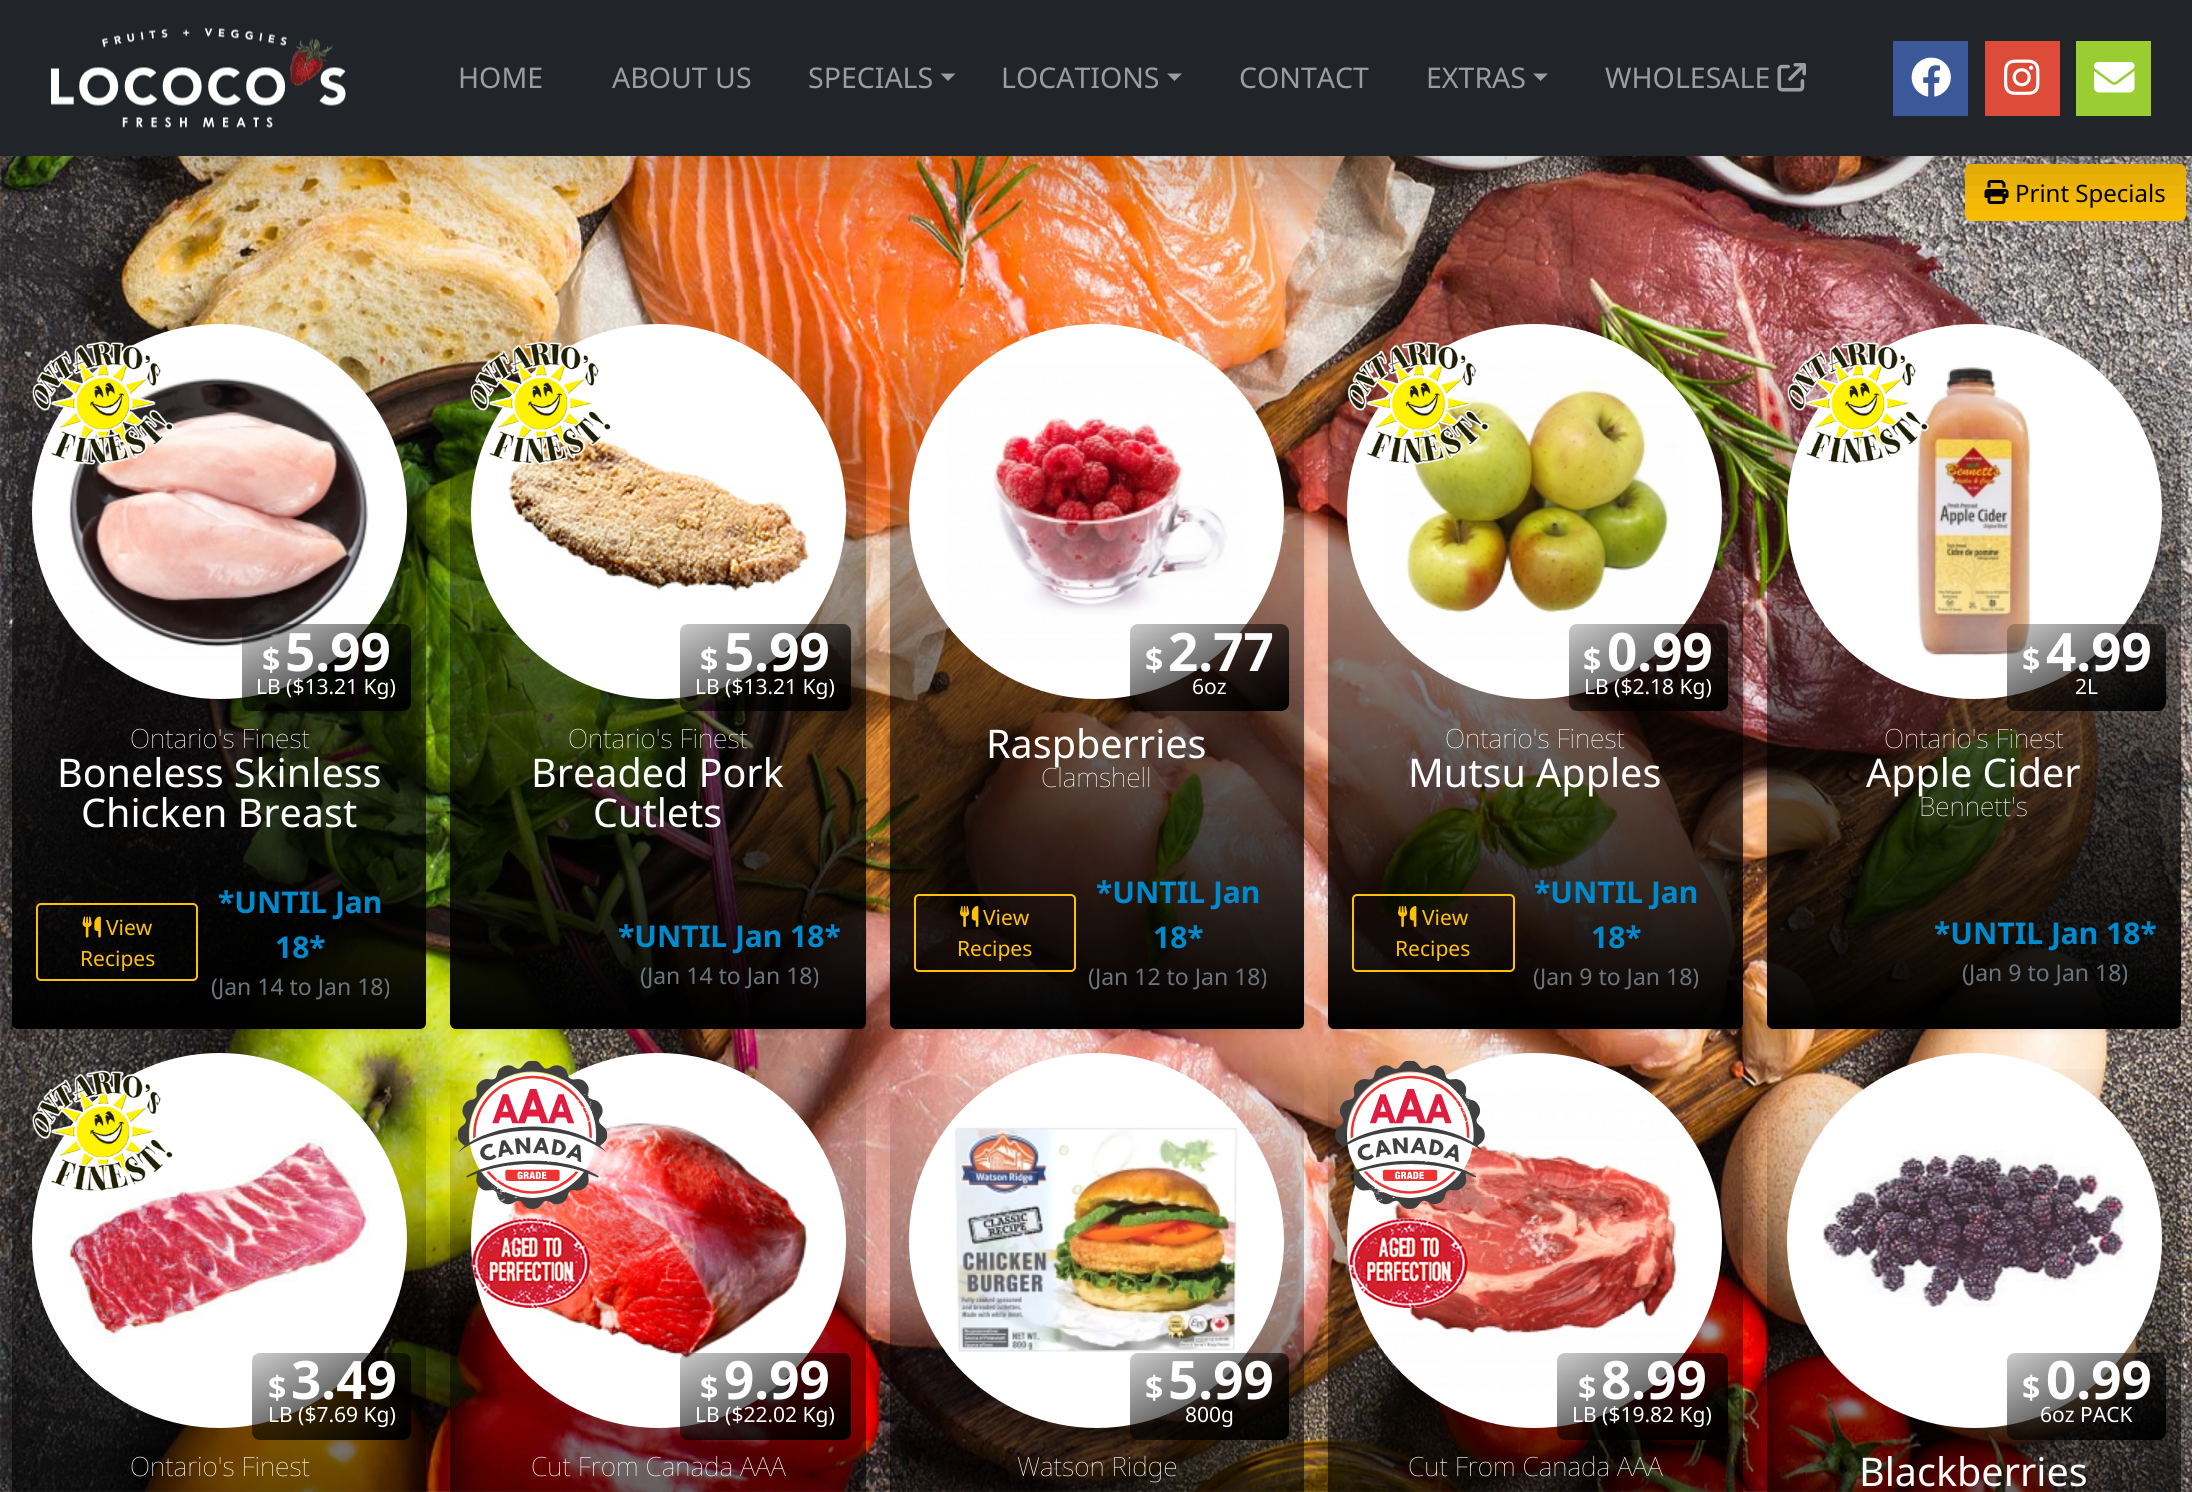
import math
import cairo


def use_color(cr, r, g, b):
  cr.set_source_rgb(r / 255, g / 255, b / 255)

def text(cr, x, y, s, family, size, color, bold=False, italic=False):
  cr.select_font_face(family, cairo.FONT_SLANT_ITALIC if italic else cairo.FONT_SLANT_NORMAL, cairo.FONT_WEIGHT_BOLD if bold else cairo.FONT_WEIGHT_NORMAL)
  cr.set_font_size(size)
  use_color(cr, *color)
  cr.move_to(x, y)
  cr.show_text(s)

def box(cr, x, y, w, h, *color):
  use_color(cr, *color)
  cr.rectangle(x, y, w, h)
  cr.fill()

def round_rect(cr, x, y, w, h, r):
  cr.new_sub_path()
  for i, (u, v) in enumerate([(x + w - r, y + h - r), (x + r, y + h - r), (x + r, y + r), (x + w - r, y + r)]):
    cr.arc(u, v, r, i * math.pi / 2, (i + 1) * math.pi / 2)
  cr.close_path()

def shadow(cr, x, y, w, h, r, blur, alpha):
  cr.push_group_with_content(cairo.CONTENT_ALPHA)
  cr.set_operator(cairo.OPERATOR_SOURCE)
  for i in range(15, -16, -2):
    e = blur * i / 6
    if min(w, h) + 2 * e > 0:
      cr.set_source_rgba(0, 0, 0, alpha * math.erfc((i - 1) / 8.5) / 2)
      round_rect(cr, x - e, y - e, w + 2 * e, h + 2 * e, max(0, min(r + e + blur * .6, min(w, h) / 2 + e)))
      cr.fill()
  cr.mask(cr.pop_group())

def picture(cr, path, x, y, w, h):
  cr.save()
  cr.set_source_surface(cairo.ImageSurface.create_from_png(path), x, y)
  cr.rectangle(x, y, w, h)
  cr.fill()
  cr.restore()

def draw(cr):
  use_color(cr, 255, 255, 255)
  cr.paint()
  picture(cr, "img_01.png", 0, 156, 2192, 1336)
  use_color(cr, 255, 193, 7)
  round_rect(cr, 1966, 165, 219, 55, 5)
  cr.fill_preserve()
  cr.stroke()
  picture(cr, "img_07.png", 1984, 180, 25, 24)
  use_color(cr, 0, 0, 0)
  shadow(cr, 0, 24, 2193, 156, 0, 36, 0.18)
  box(cr, 0, 0, 2192, 156, 33, 37, 41)
  picture(cr, "img_02.png", 51, 27, 295, 101)
  use_color(cr, 155, 157, 159)
  cr.new_path()
  cr.move_to(940.5, 73.5)
  cr.line_to(955.5, 73.5)
  cr.line_to(948, 81)
  cr.close_path()
  cr.fill()
  cr.new_path()
  cr.move_to(1167, 73.5)
  cr.line_to(1182, 73.5)
  cr.line_to(1174.5, 81)
  cr.close_path()
  cr.fill()
  cr.new_path()
  cr.move_to(1533, 73.5)
  cr.line_to(1548, 73.5)
  cr.line_to(1540.5, 81)
  cr.close_path()
  cr.fill()
  picture(cr, "img_03.png", 1777, 63, 29, 29)
  box(cr, 1893, 41, 75, 75, 59, 89, 153)
  picture(cr, "img_04.png", 1911, 57, 40, 40)
  box(cr, 1985, 41, 75, 75, 221, 75, 57)
  picture(cr, "img_05.png", 2004, 59, 36, 36)
  box(cr, 2076, 41, 75, 75, 154, 205, 50)
  picture(cr, "img_06.png", 2094, 62, 41, 31)
  cr.save()
  cr.set_fill_rule(cairo.FILL_RULE_EVEN_ODD)
  cr.new_path()
  cr.move_to(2, 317)
  cr.line_to(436, 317)
  cr.line_to(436, 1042)
  cr.line_to(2, 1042)
  cr.close_path()
  cr.move_to(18, 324)
  cr.line_to(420, 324)
  cr.curve_to(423.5, 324, 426, 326.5, 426, 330)
  cr.line_to(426, 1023)
  cr.curve_to(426, 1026.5, 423.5, 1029, 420, 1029)
  cr.line_to(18, 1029)
  cr.curve_to(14.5, 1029, 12, 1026.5, 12, 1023)
  cr.line_to(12, 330)
  cr.curve_to(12, 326.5, 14.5, 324, 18, 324)
  cr.close_path()
  cr.clip()
  use_color(cr, 0, 0, 0)
  shadow(cr, 12, 327, 414, 705, 6, 3, 0.07)
  cr.restore()
  gradient = cairo.LinearGradient(219, 324, 219, 1029)
  gradient.add_color_stop_rgba(0, 0, 0, 0, 0)
  gradient.add_color_stop_rgba(1, 0, 0, 0, 1)
  cr.set_source(gradient)
  round_rect(cr, 12, 324, 414, 705, 6)
  cr.fill()
  use_color(cr, 255, 255, 255)
  cr.arc(219.5, 511.5, 187.5, 0, 2 * math.pi)
  cr.fill()
  picture(cr, "img_08.png", 68, 361, 302, 301)
  picture(cr, "img_09.png", 32, 341, 142, 124)
  gradient = cairo.LinearGradient(291, 599, 362, 736)
  gradient.add_color_stop_rgba(0, 0, 0, 0, 0.2)
  gradient.add_color_stop_rgba(1, 0, 0, 0, 1)
  cr.set_source(gradient)
  round_rect(cr, 242, 624, 169, 87, 8)
  cr.fill()
  round_rect(cr, 37, 904, 160, 76, 4)
  use_color(cr, 255, 193, 7)
  cr.stroke()
  picture(cr, "img_10.png", 82, 916, 19, 22)
  cr.save()
  cr.set_fill_rule(cairo.FILL_RULE_EVEN_ODD)
  cr.new_path()
  cr.move_to(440, 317)
  cr.line_to(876, 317)
  cr.line_to(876, 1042)
  cr.line_to(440, 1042)
  cr.close_path()
  cr.move_to(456, 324)
  cr.line_to(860, 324)
  cr.curve_to(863.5, 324, 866, 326.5, 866, 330)
  cr.line_to(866, 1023)
  cr.curve_to(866, 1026.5, 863.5, 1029, 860, 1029)
  cr.line_to(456, 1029)
  cr.curve_to(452.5, 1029, 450, 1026.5, 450, 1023)
  cr.line_to(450, 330)
  cr.curve_to(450, 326.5, 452.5, 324, 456, 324)
  cr.close_path()
  cr.clip()
  use_color(cr, 0, 0, 0)
  shadow(cr, 450, 327, 416, 705, 6, 3, 0.07)
  cr.restore()
  gradient = cairo.LinearGradient(658, 324, 658, 1029)
  gradient.add_color_stop_rgba(0, 0, 0, 0, 0)
  gradient.add_color_stop_rgba(1, 0, 0, 0, 1)
  cr.set_source(gradient)
  round_rect(cr, 450, 324, 416, 705, 6)
  cr.fill()
  use_color(cr, 255, 255, 255)
  cr.arc(658.5, 511.5, 187.5, 0, 2 * math.pi)
  cr.fill()
  picture(cr, "img_11.png", 508, 361, 301, 301)
  picture(cr, "img_12.png", 470, 341, 141, 124)
  gradient = cairo.LinearGradient(730, 598, 800, 737)
  gradient.add_color_stop_rgba(0, 0, 0, 0, 0.2)
  gradient.add_color_stop_rgba(1, 0, 0, 0, 1)
  cr.set_source(gradient)
  round_rect(cr, 680, 624, 171, 87, 8)
  cr.fill()
  cr.save()
  cr.set_fill_rule(cairo.FILL_RULE_EVEN_ODD)
  cr.new_path()
  cr.move_to(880, 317)
  cr.line_to(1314, 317)
  cr.line_to(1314, 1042)
  cr.line_to(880, 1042)
  cr.close_path()
  cr.move_to(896, 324)
  cr.line_to(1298, 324)
  cr.curve_to(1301.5, 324, 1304, 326.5, 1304, 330)
  cr.line_to(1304, 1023)
  cr.curve_to(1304, 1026.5, 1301.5, 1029, 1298, 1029)
  cr.line_to(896, 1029)
  cr.curve_to(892.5, 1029, 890, 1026.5, 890, 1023)
  cr.line_to(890, 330)
  cr.curve_to(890, 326.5, 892.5, 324, 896, 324)
  cr.close_path()
  cr.clip()
  use_color(cr, 0, 0, 0)
  shadow(cr, 890, 327, 414, 705, 6, 3, 0.07)
  cr.restore()
  gradient = cairo.LinearGradient(1097, 324, 1097, 1029)
  gradient.add_color_stop_rgba(0, 0, 0, 0, 0)
  gradient.add_color_stop_rgba(1, 0, 0, 0, 1)
  cr.set_source(gradient)
  round_rect(cr, 890, 324, 414, 705, 6)
  cr.fill()
  use_color(cr, 255, 255, 255)
  cr.arc(1096.5, 511.5, 187.5, 0, 2 * math.pi)
  cr.fill()
  picture(cr, "img_13.png", 946, 361, 301, 301)
  gradient = cairo.LinearGradient(1172, 601, 1246, 734)
  gradient.add_color_stop_rgba(0, 0, 0, 0, 0.2)
  gradient.add_color_stop_rgba(1, 0, 0, 0, 1)
  cr.set_source(gradient)
  round_rect(cr, 1130, 624, 159, 87, 8)
  cr.fill()
  round_rect(cr, 915, 895, 160, 76, 4)
  use_color(cr, 255, 193, 7)
  cr.stroke()
  picture(cr, "img_14.png", 960, 906, 19, 21)
  cr.save()
  cr.set_fill_rule(cairo.FILL_RULE_EVEN_ODD)
  cr.new_path()
  cr.move_to(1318, 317)
  cr.line_to(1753, 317)
  cr.line_to(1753, 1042)
  cr.line_to(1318, 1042)
  cr.close_path()
  cr.move_to(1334, 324)
  cr.line_to(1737, 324)
  cr.curve_to(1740.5, 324, 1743, 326.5, 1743, 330)
  cr.line_to(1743, 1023)
  cr.curve_to(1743, 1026.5, 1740.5, 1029, 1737, 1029)
  cr.line_to(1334, 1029)
  cr.curve_to(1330.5, 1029, 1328, 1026.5, 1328, 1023)
  cr.line_to(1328, 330)
  cr.curve_to(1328, 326.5, 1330.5, 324, 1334, 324)
  cr.close_path()
  cr.clip()
  use_color(cr, 0, 0, 0)
  shadow(cr, 1328, 327, 415, 705, 6, 3, 0.07)
  cr.restore()
  gradient = cairo.LinearGradient(1535, 324, 1535, 1029)
  gradient.add_color_stop_rgba(0, 0, 0, 0, 0)
  gradient.add_color_stop_rgba(1, 0, 0, 0, 1)
  cr.set_source(gradient)
  round_rect(cr, 1328, 324, 415, 705, 6)
  cr.fill()
  use_color(cr, 255, 255, 255)
  cr.arc(1534.5, 511.5, 187.5, 0, 2 * math.pi)
  cr.fill()
  picture(cr, "img_15.png", 1384, 361, 301, 301)
  picture(cr, "img_16.png", 1347, 341, 143, 124)
  gradient = cairo.LinearGradient(1612, 601, 1685, 734)
  gradient.add_color_stop_rgba(0, 0, 0, 0, 0.2)
  gradient.add_color_stop_rgba(1, 0, 0, 0, 1)
  cr.set_source(gradient)
  round_rect(cr, 1569, 624, 159, 87, 8)
  cr.fill()
  round_rect(cr, 1353, 895, 161, 76, 4)
  use_color(cr, 255, 193, 7)
  cr.stroke()
  picture(cr, "img_17.png", 1398, 906, 19, 21)
  cr.save()
  cr.set_fill_rule(cairo.FILL_RULE_EVEN_ODD)
  cr.new_path()
  cr.move_to(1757, 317)
  cr.line_to(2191, 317)
  cr.line_to(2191, 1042)
  cr.line_to(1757, 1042)
  cr.close_path()
  cr.move_to(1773, 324)
  cr.line_to(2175, 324)
  cr.curve_to(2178.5, 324, 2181, 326.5, 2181, 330)
  cr.line_to(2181, 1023)
  cr.curve_to(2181, 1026.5, 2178.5, 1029, 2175, 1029)
  cr.line_to(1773, 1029)
  cr.curve_to(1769.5, 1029, 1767, 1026.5, 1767, 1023)
  cr.line_to(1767, 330)
  cr.curve_to(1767, 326.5, 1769.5, 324, 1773, 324)
  cr.close_path()
  cr.clip()
  use_color(cr, 0, 0, 0)
  shadow(cr, 1767, 327, 414, 705, 6, 3, 0.07)
  cr.restore()
  gradient = cairo.LinearGradient(1974, 324, 1974, 1029)
  gradient.add_color_stop_rgba(0, 0, 0, 0, 0)
  gradient.add_color_stop_rgba(1, 0, 0, 0, 1)
  cr.set_source(gradient)
  round_rect(cr, 1767, 324, 414, 705, 6)
  cr.fill()
  use_color(cr, 255, 255, 255)
  cr.arc(1974.5, 511.5, 187.5, 0, 2 * math.pi)
  cr.fill()
  picture(cr, "img_18.png", 1824, 361, 300, 301)
  picture(cr, "img_19.png", 1787, 341, 142, 123)
  gradient = cairo.LinearGradient(2050, 601, 2123, 734)
  gradient.add_color_stop_rgba(0, 0, 0, 0, 0.2)
  gradient.add_color_stop_rgba(1, 0, 0, 0, 1)
  cr.set_source(gradient)
  round_rect(cr, 2007, 624, 159, 87, 8)
  cr.fill()
  gradient = cairo.LinearGradient(219, 1053, 219, 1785)
  gradient.add_color_stop_rgba(0, 0, 0, 0, 0)
  gradient.add_color_stop_rgba(1, 0, 0, 0, 1)
  cr.set_source(gradient)
  cr.rectangle(12, 1069, 414, 423)
  cr.fill()
  use_color(cr, 255, 255, 255)
  cr.arc(219.5, 1240.5, 187.5, 0, 2 * math.pi)
  cr.fill()
  picture(cr, "img_20.png", 69, 1090, 300, 301)
  picture(cr, "img_21.png", 32, 1070, 141, 121)
  gradient = cairo.LinearGradient(295, 1330, 368, 1463)
  gradient.add_color_stop_rgba(0, 0, 0, 0, 0.2)
  gradient.add_color_stop_rgba(1, 0, 0, 0, 1)
  cr.set_source(gradient)
  round_rect(cr, 252, 1353, 159, 87, 8)
  cr.fill()
  gradient = cairo.LinearGradient(658, 1053, 658, 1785)
  gradient.add_color_stop_rgba(0, 0, 0, 0, 0)
  gradient.add_color_stop_rgba(1, 0, 0, 0, 1)
  cr.set_source(gradient)
  cr.rectangle(450, 1069, 416, 423)
  cr.fill()
  use_color(cr, 255, 255, 255)
  cr.arc(658.5, 1240.5, 187.5, 0, 2 * math.pi)
  cr.fill()
  picture(cr, "img_22.png", 508, 1090, 301, 301)
  picture(cr, "img_23.png", 458, 1061, 150, 148)
  picture(cr, "img_24.png", 471, 1218, 120, 90)
  gradient = cairo.LinearGradient(730, 1327, 800, 1466)
  gradient.add_color_stop_rgba(0, 0, 0, 0, 0.2)
  gradient.add_color_stop_rgba(1, 0, 0, 0, 1)
  cr.set_source(gradient)
  round_rect(cr, 680, 1353, 171, 87, 8)
  cr.fill()
  gradient = cairo.LinearGradient(1097, 1053, 1097, 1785)
  gradient.add_color_stop_rgba(0, 0, 0, 0, 0)
  gradient.add_color_stop_rgba(1, 0, 0, 0, 1)
  cr.set_source(gradient)
  cr.rectangle(890, 1069, 414, 423)
  cr.fill()
  use_color(cr, 255, 255, 255)
  cr.arc(1096.5, 1240.5, 187.5, 0, 2 * math.pi)
  cr.fill()
  picture(cr, "img_25.png", 946, 1090, 301, 301)
  gradient = cairo.LinearGradient(1172, 1330, 1246, 1463)
  gradient.add_color_stop_rgba(0, 0, 0, 0, 0.2)
  gradient.add_color_stop_rgba(1, 0, 0, 0, 1)
  cr.set_source(gradient)
  round_rect(cr, 1130, 1353, 159, 87, 8)
  cr.fill()
  gradient = cairo.LinearGradient(1535, 1053, 1535, 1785)
  gradient.add_color_stop_rgba(0, 0, 0, 0, 0)
  gradient.add_color_stop_rgba(1, 0, 0, 0, 1)
  cr.set_source(gradient)
  cr.rectangle(1328, 1069, 415, 423)
  cr.fill()
  use_color(cr, 255, 255, 255)
  cr.arc(1534.5, 1240.5, 187.5, 0, 2 * math.pi)
  cr.fill()
  picture(cr, "img_26.png", 1384, 1090, 301, 301)
  picture(cr, "img_27.png", 1335, 1061, 150, 148)
  picture(cr, "img_28.png", 1349, 1218, 120, 90)
  gradient = cairo.LinearGradient(1607, 1327, 1678, 1466)
  gradient.add_color_stop_rgba(0, 0, 0, 0, 0.2)
  gradient.add_color_stop_rgba(1, 0, 0, 0, 1)
  cr.set_source(gradient)
  round_rect(cr, 1557, 1353, 171, 87, 8)
  cr.fill()
  gradient = cairo.LinearGradient(1974, 1053, 1974, 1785)
  gradient.add_color_stop_rgba(0, 0, 0, 0, 0)
  gradient.add_color_stop_rgba(1, 0, 0, 0, 1)
  cr.set_source(gradient)
  cr.rectangle(1767, 1069, 414, 423)
  cr.fill()
  use_color(cr, 255, 255, 255)
  cr.arc(1974.5, 1240.5, 187.5, 0, 2 * math.pi)
  cr.fill()
  picture(cr, "img_29.png", 1823, 1090, 302, 301)
  gradient = cairo.LinearGradient(2050, 1330, 2123, 1463)
  gradient.add_color_stop_rgba(0, 0, 0, 0, 0.2)
  gradient.add_color_stop_rgba(1, 0, 0, 0, 1)
  cr.set_source(gradient)
  round_rect(cr, 2007, 1353, 159, 87, 8)
  cr.fill()
  text(cr, 458, 88, "HOME", "Noto Sans", 28.5, (155, 157, 159))
  text(cr, 612, 88, "ABOUT US", "Noto Sans", 28.5, (155, 157, 159))
  text(cr, 808, 88, "SPECIALS", "Noto Sans", 28.5, (155, 157, 159))
  text(cr, 1001, 88, "LOCATIONS", "Noto Sans", 28.5, (155, 157, 159))
  text(cr, 1239, 88, "CONTACT", "Noto Sans", 28.5, (155, 157, 159))
  text(cr, 1426, 88, "EXTRAS", "Noto Sans", 28.5, (155, 157, 159))
  text(cr, 1605, 88, "WHOLESALE", "Noto Sans", 28.5, (155, 157, 159))
  text(cr, 2015, 202, "Print Specials", "Noto Sans", 24, (0, 0, 0))
  text(cr, 262, 671, "$", "Noto Sans", 32, (255, 255, 255), bold=True)
  text(cr, 285, 671, "5.99", "Noto Sans", 53, (255, 255, 255), bold=True)
  text(cr, 256, 694, "LB ($13.21 Kg)", "Noto Sans", 21, (255, 255, 255))
  text(cr, 130, 748, "Ontario's Finest", "Noto Sans Thin", 26.5, (255, 255, 255))
  text(cr, 57, 787, "Boneless Skinless", "Noto Sans", 39.5, (255, 255, 255))
  text(cr, 81, 827, "Chicken Breast", "Noto Sans", 39.5, (255, 255, 255))
  text(cr, 106, 935, "View", "Noto Sans", 21, (255, 193, 7))
  text(cr, 80, 966, "Recipes", "Noto Sans", 21, (255, 193, 7))
  text(cr, 218, 913, "*UNTIL Jan", "Noto Sans", 30, (0, 137, 204), bold=True)
  text(cr, 275, 958, "18*", "Noto Sans", 30, (0, 137, 204), bold=True)
  text(cr, 211, 995, "(Jan 14 to Jan 18)", "Noto Sans", 23, (108, 117, 125))
  text(cr, 700, 671, "$", "Noto Sans", 32, (255, 255, 255), bold=True)
  text(cr, 724, 671, "5.99", "Noto Sans", 53, (255, 255, 255), bold=True)
  text(cr, 695, 694, "LB ($13.21 Kg)", "Noto Sans", 21, (255, 255, 255))
  text(cr, 568, 748, "Ontario's Finest", "Noto Sans Thin", 26.5, (255, 255, 255))
  text(cr, 531, 787, "Breaded Pork", "Noto Sans", 39.5, (255, 255, 255))
  text(cr, 593, 827, "Cutlets", "Noto Sans", 39.5, (255, 255, 255))
  text(cr, 618, 947, "*UNTIL Jan 18*", "Noto Sans", 30, (0, 137, 204), bold=True)
  text(cr, 640, 984, "(Jan 14 to Jan 18)", "Noto Sans", 23, (108, 117, 125))
  text(cr, 1145, 671, "$", "Noto Sans", 32, (255, 255, 255), bold=True)
  text(cr, 1168, 671, "2.77", "Noto Sans", 53, (255, 255, 255), bold=True)
  text(cr, 1192, 694, "6oz", "Noto Sans", 21, (255, 255, 255))
  text(cr, 986, 758, "Raspberries", "Noto Sans", 39.5, (255, 255, 255))
  text(cr, 1041, 787, "Clamshell", "Noto Sans Thin", 26.5, (255, 255, 255))
  text(cr, 983, 925, "View", "Noto Sans", 21, (255, 193, 7))
  text(cr, 957, 956, "Recipes", "Noto Sans", 21, (255, 193, 7))
  text(cr, 1096, 903, "*UNTIL Jan", "Noto Sans", 30, (0, 137, 204), bold=True)
  text(cr, 1153, 948, "18*", "Noto Sans", 30, (0, 137, 204), bold=True)
  text(cr, 1088, 985, "(Jan 12 to Jan 18)", "Noto Sans", 23, (108, 117, 125))
  text(cr, 1583, 671, "$", "Noto Sans", 32, (255, 255, 255), bold=True)
  text(cr, 1607, 671, "0.99", "Noto Sans", 53, (255, 255, 255), bold=True)
  text(cr, 1584, 694, "LB ($2.18 Kg)", "Noto Sans", 21, (255, 255, 255))
  text(cr, 1445, 748, "Ontario's Finest", "Noto Sans Thin", 26.5, (255, 255, 255))
  text(cr, 1408, 787, "Mutsu Apples", "Noto Sans", 39.5, (255, 255, 255))
  text(cr, 1422, 925, "View", "Noto Sans", 21, (255, 193, 7))
  text(cr, 1395, 956, "Recipes", "Noto Sans", 21, (255, 193, 7))
  text(cr, 1534, 903, "*UNTIL Jan", "Noto Sans", 30, (0, 137, 204), bold=True)
  text(cr, 1591, 948, "18*", "Noto Sans", 30, (0, 137, 204), bold=True)
  text(cr, 1533, 985, "(Jan 9 to Jan 18)", "Noto Sans", 23, (108, 117, 125))
  text(cr, 2022, 671, "$", "Noto Sans", 32, (255, 255, 255), bold=True)
  text(cr, 2046, 671, "4.99", "Noto Sans", 53, (255, 255, 255), bold=True)
  text(cr, 2075, 694, "2L", "Noto Sans", 21, (255, 255, 255))
  text(cr, 1884, 748, "Ontario's Finest", "Noto Sans Thin", 26.5, (255, 255, 255))
  text(cr, 1866, 787, "Apple Cider", "Noto Sans", 39.5, (255, 255, 255))
  text(cr, 1919, 816, "Bennett's", "Noto Sans Thin", 26.5, (255, 255, 255))
  text(cr, 1934, 944, "*UNTIL Jan 18*", "Noto Sans", 30, (0, 137, 204), bold=True)
  text(cr, 1962, 981, "(Jan 9 to Jan 18)", "Noto Sans", 23, (108, 117, 125))
  text(cr, 268, 1399, "$", "Noto Sans", 32, (255, 255, 255), bold=True)
  text(cr, 291, 1399, "3.49", "Noto Sans", 53, (255, 255, 255), bold=True)
  text(cr, 268, 1422, "LB ($7.69 Kg)", "Noto Sans", 21, (255, 255, 255))
  text(cr, 130, 1476, "Ontario's Finest", "Noto Sans Thin", 26.5, (255, 255, 255))
  text(cr, 700, 1399, "$", "Noto Sans", 32, (255, 255, 255), bold=True)
  text(cr, 724, 1399, "9.99", "Noto Sans", 53, (255, 255, 255), bold=True)
  text(cr, 695, 1422, "LB ($22.02 Kg)", "Noto Sans", 21, (255, 255, 255))
  text(cr, 531, 1476, "Cut From Canada AAA", "Noto Sans Thin", 26.5, (255, 255, 255))
  text(cr, 1145, 1399, "$", "Noto Sans", 32, (255, 255, 255), bold=True)
  text(cr, 1168, 1399, "5.99", "Noto Sans", 53, (255, 255, 255), bold=True)
  text(cr, 1185, 1422, "800g", "Noto Sans", 21, (255, 255, 255))
  text(cr, 1017, 1476, "Watson Ridge", "Noto Sans Thin", 26.5, (255, 255, 255))
  text(cr, 1578, 1399, "$", "Noto Sans", 32, (255, 255, 255), bold=True)
  text(cr, 1601, 1399, "8.99", "Noto Sans", 53, (255, 255, 255), bold=True)
  text(cr, 1572, 1422, "LB ($19.82 Kg)", "Noto Sans", 21, (255, 255, 255))
  text(cr, 1408, 1476, "Cut From Canada AAA", "Noto Sans Thin", 26.5, (255, 255, 255))
  text(cr, 2022, 1399, "$", "Noto Sans", 32, (255, 255, 255), bold=True)
  text(cr, 2046, 1399, "0.99", "Noto Sans", 53, (255, 255, 255), bold=True)
  text(cr, 2040, 1422, "6oz PACK", "Noto Sans", 21, (255, 255, 255))
  text(cr, 1859, 1486, "Blackberries", "Noto Sans", 39.5, (255, 255, 255))


surface = cairo.ImageSurface(cairo.FORMAT_RGB24, 2192, 1492)
cr = cairo.Context(surface)
options = cairo.FontOptions()
options.set_hint_metrics(cairo.HINT_METRICS_OFF)
options.set_hint_style(cairo.HINT_STYLE_NONE)
cr.set_font_options(options)
cr.set_miter_limit(4)
draw(cr)
surface.write_to_png("out.png")
